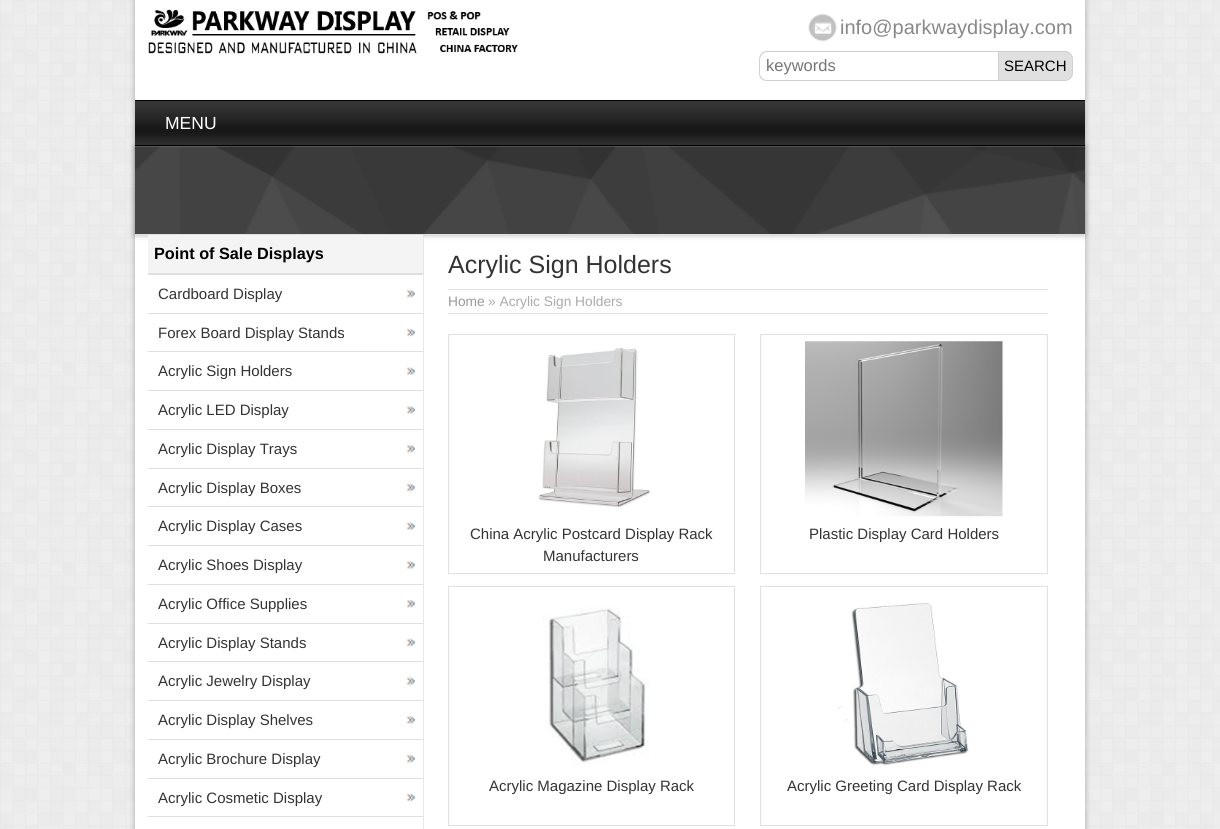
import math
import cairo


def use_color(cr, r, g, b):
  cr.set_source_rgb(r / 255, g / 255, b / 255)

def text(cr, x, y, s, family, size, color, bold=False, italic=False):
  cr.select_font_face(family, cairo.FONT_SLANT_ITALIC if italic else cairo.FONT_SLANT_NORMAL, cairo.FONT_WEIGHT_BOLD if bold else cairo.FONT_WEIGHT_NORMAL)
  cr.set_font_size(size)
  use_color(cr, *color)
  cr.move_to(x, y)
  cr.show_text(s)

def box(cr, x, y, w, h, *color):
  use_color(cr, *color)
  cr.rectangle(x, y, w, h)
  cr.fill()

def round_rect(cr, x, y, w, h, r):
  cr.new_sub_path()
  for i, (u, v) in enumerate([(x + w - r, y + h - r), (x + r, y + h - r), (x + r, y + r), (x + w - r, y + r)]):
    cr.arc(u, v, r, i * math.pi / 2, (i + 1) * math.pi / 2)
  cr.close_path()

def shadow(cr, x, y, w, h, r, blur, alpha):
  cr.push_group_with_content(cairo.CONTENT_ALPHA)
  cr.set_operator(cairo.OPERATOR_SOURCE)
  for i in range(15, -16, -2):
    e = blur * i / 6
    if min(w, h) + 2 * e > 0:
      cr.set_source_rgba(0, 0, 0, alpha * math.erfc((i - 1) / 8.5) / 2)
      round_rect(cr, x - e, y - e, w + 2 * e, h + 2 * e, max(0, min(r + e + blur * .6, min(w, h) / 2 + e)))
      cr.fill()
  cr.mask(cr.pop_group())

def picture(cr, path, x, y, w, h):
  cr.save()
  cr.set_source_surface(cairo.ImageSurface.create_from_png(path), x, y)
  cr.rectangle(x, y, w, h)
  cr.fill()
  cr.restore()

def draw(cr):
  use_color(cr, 255, 255, 255)
  cr.paint()
  picture(cr, "img_01.png", 0, 0, 1220, 829)
  use_color(cr, 0, 0, 0)
  shadow(cr, 135, 0, 950, 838, 0, 3, 0.3)
  box(cr, 135, 0, 950, 829, 255, 255, 255)
  picture(cr, "img_02.png", 148, 9, 370, 45)
  picture(cr, "img_03.png", 808, 13, 29, 29)
  use_color(cr, 208, 208, 208)
  cr.set_fill_rule(cairo.FILL_RULE_EVEN_ODD)
  cr.new_path()
  cr.move_to(767, 51)
  cr.line_to(998, 51)
  cr.line_to(998, 81)
  cr.line_to(767, 81)
  cr.curve_to(762, 81, 759, 78, 759, 73)
  cr.line_to(759, 60)
  cr.curve_to(759, 55, 762, 51, 767, 51)
  cr.close_path()
  cr.move_to(767, 52)
  cr.line_to(998, 52)
  cr.line_to(998, 80)
  cr.line_to(767, 80)
  cr.curve_to(763, 80, 760, 77, 760, 73)
  cr.line_to(760, 60)
  cr.curve_to(760, 56, 763, 52, 767, 52)
  cr.close_path()
  cr.fill()
  use_color(cr, 224, 224, 224)
  cr.new_path()
  cr.move_to(998.5, 51.5)
  cr.line_to(1065, 51.5)
  cr.curve_to(1069, 51.5, 1072.5, 55, 1072.5, 59)
  cr.line_to(1072.5, 73)
  cr.curve_to(1072.5, 77, 1069, 80.5, 1065, 80.5)
  cr.line_to(998.5, 80.5)
  cr.close_path()
  cr.fill_preserve()
  use_color(cr, 208, 208, 208)
  cr.set_line_width(1)
  cr.stroke()
  picture(cr, "img_04.png", 135, 101, 950, 46)
  box(cr, 135, 100, 950, 1, 0, 0, 0)
  box(cr, 135, 145, 950, 1, 0, 0, 0)
  use_color(cr, 0, 0, 0)
  shadow(cr, 135, 146, 950, 89, 0, 3, 0.3)
  picture(cr, "img_05.png", 135, 146, 950, 88)
  box(cr, 135, 234, 950, 1, 224, 224, 224)
  picture(cr, "img_06.png", 423, 236, 1, 593)
  box(cr, 148, 235, 275, 38, 244, 244, 244)
  box(cr, 148, 273, 275, 1, 224, 224, 224)
  box(cr, 148, 274, 275, 1, 223, 223, 223)
  picture(cr, "img_07.png", 407, 290, 8, 8)
  box(cr, 148, 313, 275, 1, 223, 223, 223)
  picture(cr, "img_08.png", 407, 328, 8, 9)
  box(cr, 148, 351, 275, 1, 223, 223, 223)
  picture(cr, "img_09.png", 407, 367, 8, 8)
  box(cr, 148, 390, 275, 1, 223, 223, 223)
  picture(cr, "img_10.png", 407, 406, 8, 8)
  box(cr, 148, 429, 275, 1, 223, 223, 223)
  picture(cr, "img_07.png", 407, 445, 8, 8)
  box(cr, 148, 468, 275, 1, 223, 223, 223)
  picture(cr, "img_08.png", 407, 483, 8, 9)
  box(cr, 148, 506, 275, 1, 223, 223, 223)
  picture(cr, "img_09.png", 407, 522, 8, 8)
  box(cr, 148, 545, 275, 1, 223, 223, 223)
  picture(cr, "img_10.png", 407, 561, 8, 8)
  box(cr, 148, 584, 275, 1, 223, 223, 223)
  picture(cr, "img_07.png", 407, 600, 8, 8)
  box(cr, 148, 623, 275, 1, 223, 223, 223)
  picture(cr, "img_08.png", 407, 638, 8, 9)
  box(cr, 148, 661, 275, 1, 223, 223, 223)
  picture(cr, "img_09.png", 407, 677, 8, 8)
  box(cr, 148, 700, 275, 1, 223, 223, 223)
  picture(cr, "img_10.png", 407, 716, 8, 8)
  box(cr, 148, 739, 275, 1, 223, 223, 223)
  picture(cr, "img_07.png", 407, 755, 8, 8)
  box(cr, 148, 778, 275, 1, 223, 223, 223)
  picture(cr, "img_08.png", 407, 793, 8, 9)
  box(cr, 148, 816, 275, 1, 223, 223, 223)
  box(cr, 448, 289, 600, 1, 224, 224, 224)
  box(cr, 448, 313, 600, 1, 224, 224, 224)
  cr.rectangle(448.5, 334.5, 286, 239)
  cr.stroke()
  picture(cr, "img_11.png", 538, 348, 113, 160)
  cr.rectangle(760.5, 334.5, 287, 239)
  cr.stroke()
  picture(cr, "img_12.png", 805, 341, 198, 176)
  cr.rectangle(448.5, 586.5, 286, 239)
  cr.stroke()
  picture(cr, "img_13.png", 543, 607, 106, 158)
  cr.rectangle(760.5, 586.5, 287, 239)
  cr.stroke()
  picture(cr, "img_14.png", 837, 603, 132, 162)
  text(cr, 840, 34, "info@parkwaydisplay.com", "Liberation Sans", 20, (136, 136, 136))
  text(cr, 766, 71, "keywords", "Liberation Sans", 16.5, (117, 117, 117))
  text(cr, 1004, 71, "SEARCH", "Liberation Sans", 15, (0, 0, 0))
  text(cr, 165, 129, "MENU", "Liberation Sans", 17.5, (255, 255, 255))
  text(cr, 154, 259, "Point of Sale Displays", "Liberation Sans", 16.25, (0, 0, 0), bold=True)
  text(cr, 158, 299, "Cardboard Display", "Liberation Sans", 15, (51, 51, 51))
  text(cr, 158, 338, "Forex Board Display Stands", "Liberation Sans", 15, (51, 51, 51))
  text(cr, 158, 376, "Acrylic Sign Holders", "Liberation Sans", 15, (51, 51, 51))
  text(cr, 158, 415, "Acrylic LED Display", "Liberation Sans", 15, (51, 51, 51))
  text(cr, 158, 454, "Acrylic Display Trays", "Liberation Sans", 15, (51, 51, 51))
  text(cr, 158, 493, "Acrylic Display Boxes", "Liberation Sans", 15, (51, 51, 51))
  text(cr, 158, 531, "Acrylic Display Cases", "Liberation Sans", 15, (51, 51, 51))
  text(cr, 158, 570, "Acrylic Shoes Display", "Liberation Sans", 15, (51, 51, 51))
  text(cr, 158, 609, "Acrylic Office Supplies", "Liberation Sans", 15, (51, 51, 51))
  text(cr, 158, 648, "Acrylic Display Stands", "Liberation Sans", 15, (51, 51, 51))
  text(cr, 158, 686, "Acrylic Jewelry Display", "Liberation Sans", 15, (51, 51, 51))
  text(cr, 158, 725, "Acrylic Display Shelves", "Liberation Sans", 15, (51, 51, 51))
  text(cr, 158, 764, "Acrylic Brochure Display", "Liberation Sans", 15, (51, 51, 51))
  text(cr, 158, 803, "Acrylic Cosmetic Display", "Liberation Sans", 15, (51, 51, 51))
  text(cr, 448, 273, "Acrylic Sign Holders", "Liberation Sans", 25, (51, 51, 51))
  text(cr, 448, 306, "Home", "Liberation Sans", 13.75, (153, 153, 153))
  text(cr, 488, 306, "» Acrylic Sign Holders", "Liberation Sans", 13.75, (170, 170, 170))
  text(cr, 470, 539, "China Acrylic Postcard Display Rack", "Liberation Sans", 15, (51, 51, 51))
  text(cr, 543, 561, "Manufacturers", "Liberation Sans", 15, (51, 51, 51))
  text(cr, 809, 539, "Plastic Display Card Holders", "Liberation Sans", 15, (51, 51, 51))
  text(cr, 489, 791, "Acrylic Magazine Display Rack", "Liberation Sans", 15, (51, 51, 51))
  text(cr, 787, 791, "Acrylic Greeting Card Display Rack", "Liberation Sans", 15, (51, 51, 51))


surface = cairo.ImageSurface(cairo.FORMAT_RGB24, 1220, 829)
cr = cairo.Context(surface)
options = cairo.FontOptions()
options.set_hint_metrics(cairo.HINT_METRICS_OFF)
options.set_hint_style(cairo.HINT_STYLE_NONE)
cr.set_font_options(options)
cr.set_miter_limit(4)
draw(cr)
surface.write_to_png("out.png")
